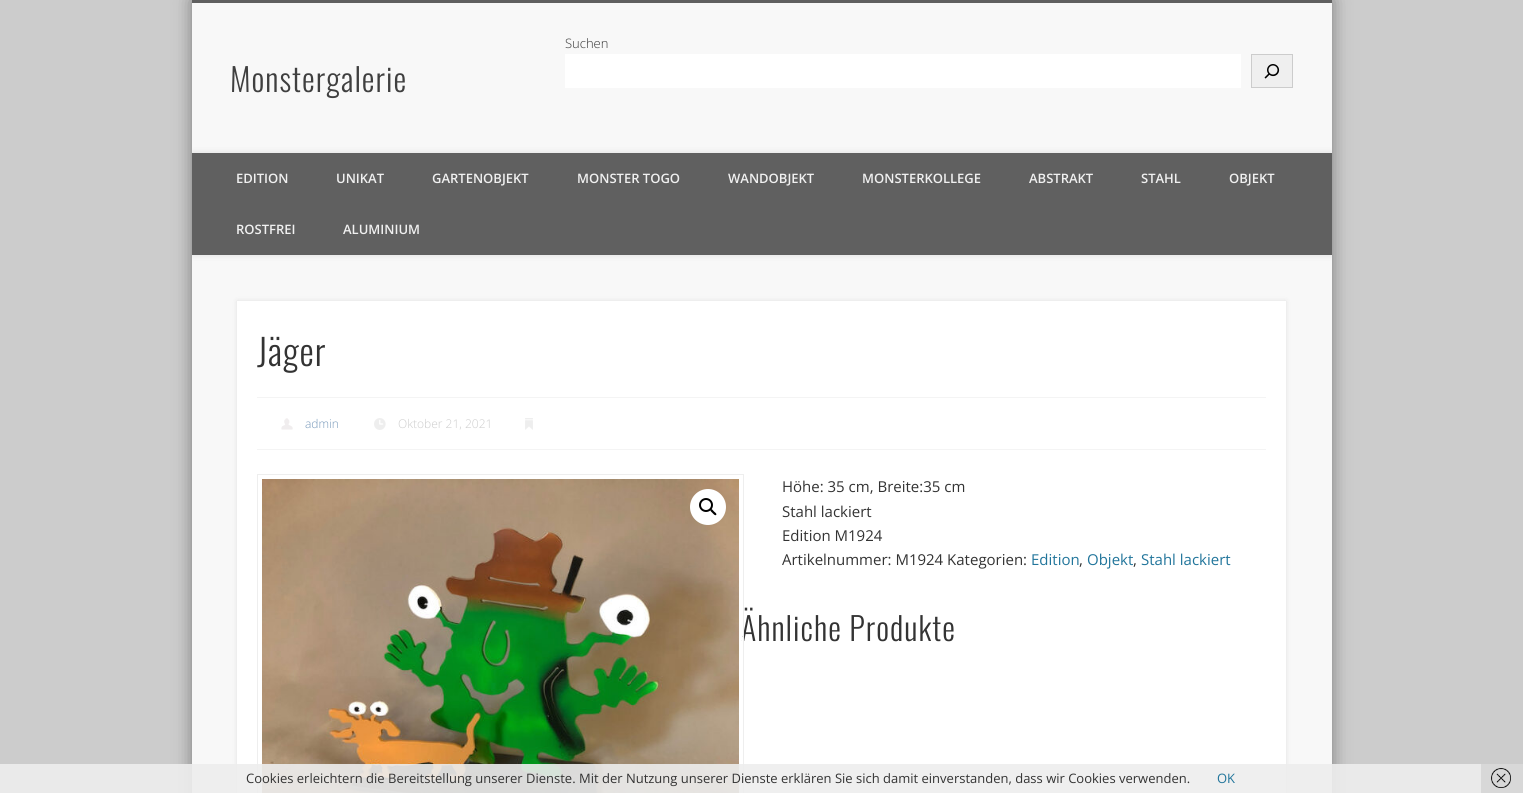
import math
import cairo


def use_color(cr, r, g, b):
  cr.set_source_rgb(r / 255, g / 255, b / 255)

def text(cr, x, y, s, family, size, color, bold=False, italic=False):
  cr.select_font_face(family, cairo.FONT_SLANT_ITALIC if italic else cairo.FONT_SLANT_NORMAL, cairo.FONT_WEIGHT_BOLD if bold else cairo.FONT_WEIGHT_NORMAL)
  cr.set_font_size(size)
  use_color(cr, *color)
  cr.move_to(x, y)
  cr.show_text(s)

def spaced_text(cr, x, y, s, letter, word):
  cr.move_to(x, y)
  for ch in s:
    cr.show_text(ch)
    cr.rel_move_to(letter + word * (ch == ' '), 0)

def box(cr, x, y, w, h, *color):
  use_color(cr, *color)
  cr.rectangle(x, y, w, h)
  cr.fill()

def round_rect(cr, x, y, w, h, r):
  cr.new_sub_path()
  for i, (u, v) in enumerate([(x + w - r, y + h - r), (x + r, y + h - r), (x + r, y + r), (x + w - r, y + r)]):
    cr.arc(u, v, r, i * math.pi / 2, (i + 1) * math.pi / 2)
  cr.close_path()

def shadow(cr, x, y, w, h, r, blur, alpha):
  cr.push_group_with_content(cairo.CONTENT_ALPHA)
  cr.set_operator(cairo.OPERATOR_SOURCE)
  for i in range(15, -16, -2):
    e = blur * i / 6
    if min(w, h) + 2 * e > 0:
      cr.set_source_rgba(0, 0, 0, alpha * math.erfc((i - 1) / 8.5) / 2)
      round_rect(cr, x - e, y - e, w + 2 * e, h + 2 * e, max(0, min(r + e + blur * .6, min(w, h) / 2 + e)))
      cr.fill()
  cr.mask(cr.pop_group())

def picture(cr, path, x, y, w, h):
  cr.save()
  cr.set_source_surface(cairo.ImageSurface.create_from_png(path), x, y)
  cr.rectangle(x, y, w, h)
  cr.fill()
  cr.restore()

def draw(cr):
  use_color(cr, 204, 204, 204)
  cr.paint()
  use_color(cr, 0, 0, 0)
  shadow(cr, 192, 0, 1140, 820, 0, 9, 0.4)
  box(cr, 192, 3, 1140, 790, 248, 248, 248)
  box(cr, 192, 0, 1140, 3, 96, 96, 96)
  box(cr, 565, 54, 676, 34, 255, 255, 255)
  use_color(cr, 239, 239, 239)
  cr.rectangle(1251.5, 54.5, 41, 33)
  cr.fill_preserve()
  use_color(cr, 204, 204, 204)
  cr.set_line_width(1)
  cr.stroke()
  picture(cr, "img_01.png", 1264, 64, 16, 15)
  cr.save()
  cr.rectangle(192, 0, 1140, 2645)
  cr.clip()
  use_color(cr, 0, 0, 0)
  shadow(cr, 192, 153, 1140, 102, 0, 3.5, 0.1)
  cr.restore()
  box(cr, 192, 153, 1140, 102, 96, 96, 96)
  use_color(cr, 0, 0, 0)
  shadow(cr, 237, 301, 1049, 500, 0, 2.5, 0.1)
  box(cr, 237, 301, 1049, 492, 255, 255, 255)
  box(cr, 257, 397, 1009, 1, 244, 244, 244)
  box(cr, 257, 449, 1009, 1, 244, 244, 244)
  picture(cr, "img_02.png", 281, 418, 12, 12)
  picture(cr, "img_03.png", 374, 418, 12, 12)
  picture(cr, "img_04.png", 525, 418, 8, 12)
  box(cr, 1481, 764, 42, 29, 216, 216, 216)
  picture(cr, "img_06.png", 1491, 768, 20, 20)
  text(cr, 565, 48, "Suchen", "Open Sans Light", 13, (51, 51, 51))
  cr.select_font_face("Oswald Light")
  cr.set_font_size(32)
  use_color(cr, 63, 63, 63)
  spaced_text(cr, 230, 92, "Monstergalerie", 1, 0)
  text(cr, 236, 183, "EDITION", "Open Sans SemiBold", 13, (240, 240, 240))
  text(cr, 336, 183, "UNIKAT", "Open Sans SemiBold", 13, (240, 240, 240))
  text(cr, 432, 183, "GARTENOBJEKT", "Open Sans SemiBold", 13, (240, 240, 240))
  text(cr, 577, 183, "MONSTER TOGO", "Open Sans SemiBold", 13, (240, 240, 240))
  text(cr, 728, 183, "WANDOBJEKT", "Open Sans SemiBold", 13, (240, 240, 240))
  text(cr, 862, 183, "MONSTERKOLLEGE", "Open Sans SemiBold", 13, (240, 240, 240))
  text(cr, 1029, 183, "ABSTRAKT", "Open Sans SemiBold", 13, (240, 240, 240))
  text(cr, 1141, 183, "STAHL", "Open Sans SemiBold", 13, (240, 240, 240))
  text(cr, 1229, 183, "OBJEKT", "Open Sans SemiBold", 13, (240, 240, 240))
  text(cr, 236, 234, "ROSTFREI", "Open Sans SemiBold", 13, (240, 240, 240))
  text(cr, 343, 234, "ALUMINIUM", "Open Sans SemiBold", 13, (240, 240, 240))
  cr.select_font_face("Oswald Light")
  cr.set_font_size(36)
  use_color(cr, 51, 51, 51)
  spaced_text(cr, 257, 366, "Jäger", 1, 0)
  text(cr, 305, 428, "admin", "Open Sans Light", 12, (117, 151, 185))
  text(cr, 398, 428, "Oktober 21, 2021", "Open Sans Light", 12, (204, 204, 204))
  text(cr, 782, 492, "Höhe: 35 cm, Breite:35 cm", "Open Sans", 15, (51, 51, 51))
  text(cr, 782, 517, "Stahl lackiert", "Open Sans", 15, (51, 51, 51))
  text(cr, 782, 541, "Edition M1924", "Open Sans", 15, (51, 51, 51))
  text(cr, 782, 565, "Artikelnummer: M1924 Kategorien:", "Open Sans", 15, (51, 51, 51))
  text(cr, 1031, 565, "Edition", "Open Sans", 15, (33, 117, 155))
  text(cr, 1079, 565, ",", "Open Sans", 15, (51, 51, 51))
  text(cr, 1087, 565, "Objekt", "Open Sans", 15, (33, 117, 155))
  text(cr, 1133, 565, ",", "Open Sans", 15, (51, 51, 51))
  text(cr, 1141, 565, "Stahl lackiert", "Open Sans", 15, (33, 117, 155))
  cr.select_font_face("Oswald Light")
  cr.set_font_size(32)
  use_color(cr, 51, 51, 51)
  spaced_text(cr, 741, 641, "Ähnliche Produkte", 1, 0)
  box(cr, 742, 637, 1, 4, 255, 255, 255)
  cr.rectangle(257.5, 474.5, 486, 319)
  use_color(cr, 238, 238, 238)
  cr.stroke()
  picture(cr, "img_05.png", 262, 479, 477, 314)
  use_color(cr, 255, 255, 255)
  cr.arc(708, 507, 18, 0, 2 * math.pi)
  cr.fill()
  cr.arc(706, 505, 6, 0, 2 * math.pi)
  use_color(cr, 0, 0, 0)
  cr.set_line_width(2)
  cr.stroke()
  cr.new_path()
  cr.move_to(710.5, 509.5)
  cr.curve_to(711.5, 508, 713.5, 511, 714, 511.5)
  cr.curve_to(714.5, 512, 717.5, 514, 716, 515)
  cr.curve_to(715, 516, 713, 513.5, 712.5, 513)
  cr.curve_to(712, 512.5, 709.5, 510.5, 710.5, 509.5)
  cr.close_path()
  cr.fill()
  cr.set_source_rgba(0.933, 0.933, 0.933, 0.9)
  cr.rectangle(0, 764, 1481, 29)
  cr.fill()
  text(cr, 246, 783, "Cookies erleichtern die Bereitstellung unserer Dienste. Mit der Nutzung unserer Dienste erklären Sie sich damit einverstanden, dass wir Cookies verwenden.", "Open Sans", 13, (51, 51, 51))
  text(cr, 1217, 783, "OK", "Open Sans", 13, (33, 117, 155))


surface = cairo.ImageSurface(cairo.FORMAT_RGB24, 1523, 793)
cr = cairo.Context(surface)
options = cairo.FontOptions()
options.set_hint_metrics(cairo.HINT_METRICS_OFF)
options.set_hint_style(cairo.HINT_STYLE_NONE)
cr.set_font_options(options)
cr.set_miter_limit(4)
draw(cr)
surface.write_to_png("out.png")
